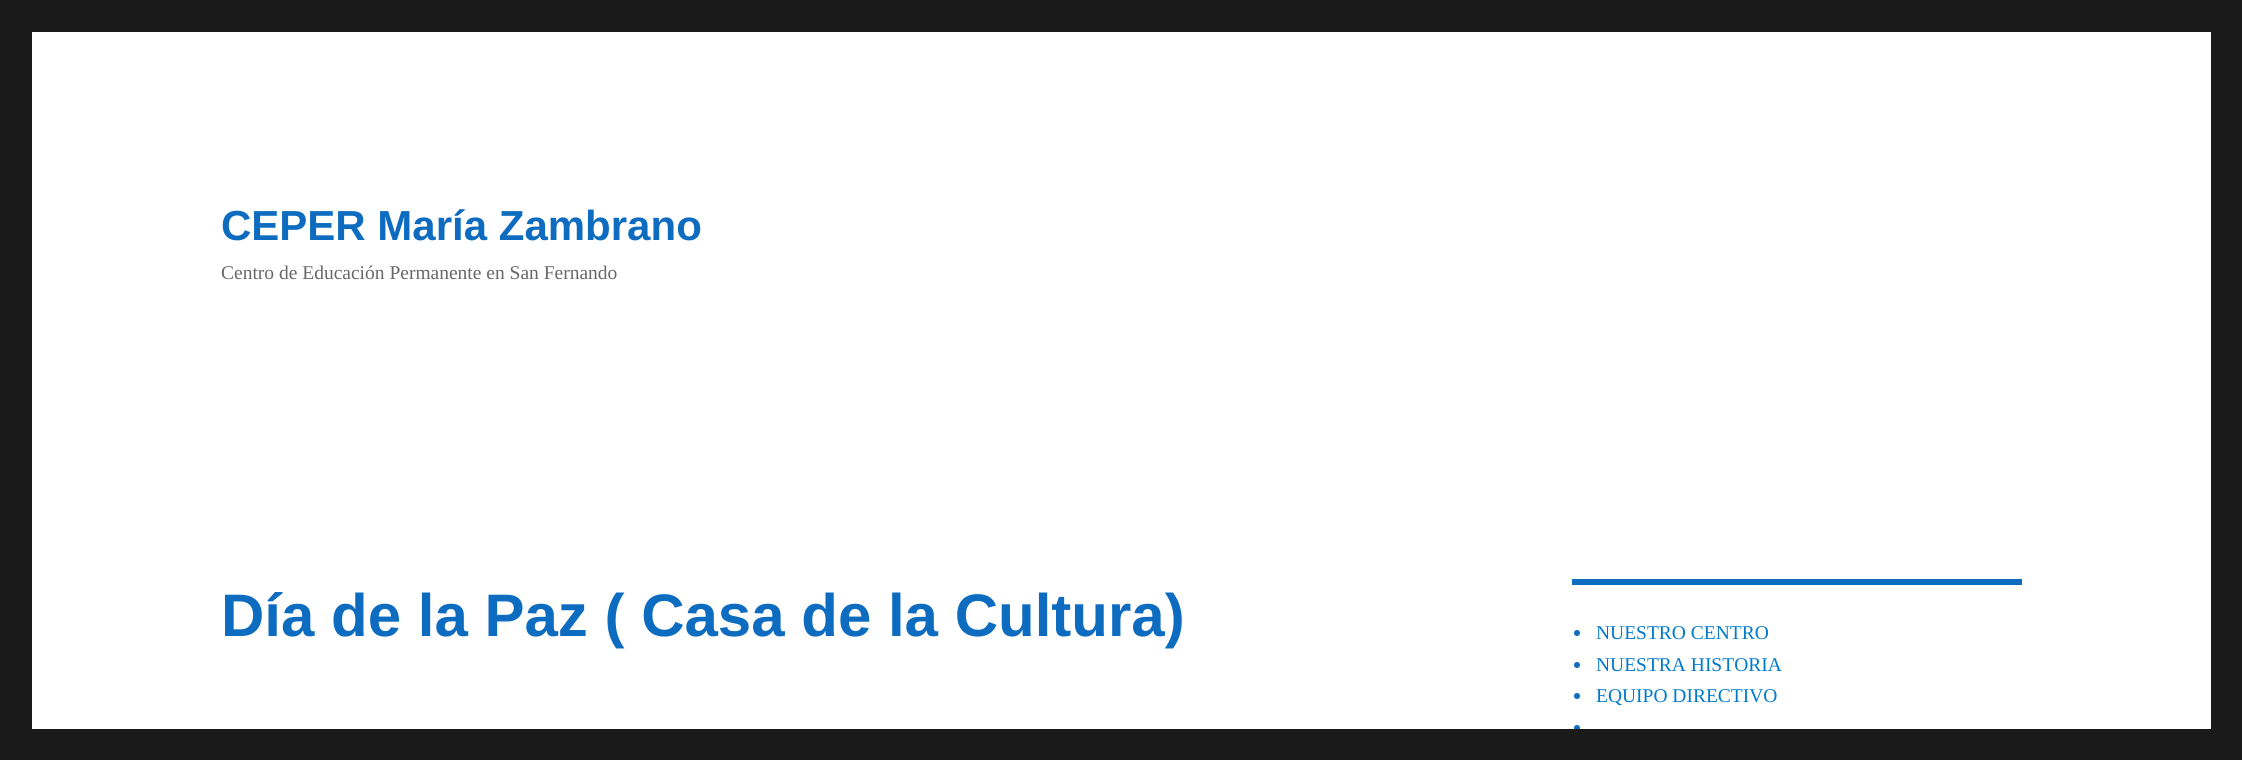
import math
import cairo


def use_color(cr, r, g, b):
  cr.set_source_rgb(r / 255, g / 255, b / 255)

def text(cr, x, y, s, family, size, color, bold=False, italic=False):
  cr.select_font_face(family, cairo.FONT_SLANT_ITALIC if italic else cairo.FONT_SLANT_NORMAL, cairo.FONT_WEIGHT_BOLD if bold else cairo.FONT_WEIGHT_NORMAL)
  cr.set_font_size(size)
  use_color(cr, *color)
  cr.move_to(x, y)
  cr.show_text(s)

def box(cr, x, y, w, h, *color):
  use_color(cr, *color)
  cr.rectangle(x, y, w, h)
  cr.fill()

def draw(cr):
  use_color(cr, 26, 26, 26)
  cr.paint()
  box(cr, 32, 32, 2179, 697, 255, 255, 255)
  box(cr, 1572, 579, 450, 6, 13, 108, 191)
  cr.arc(1577, 633, 3, 0, 2 * math.pi)
  cr.fill()
  cr.arc(1577, 665, 3, 0, 2 * math.pi)
  cr.fill()
  cr.arc(1577, 696, 3, 0, 2 * math.pi)
  cr.fill()
  cr.arc(1577, 728, 3, 0, 2 * math.pi)
  cr.fill()
  box(cr, 1574, 729, 6, 2, 26, 26, 26)
  text(cr, 221, 240, "CEPER María Zambrano", "Liberation Sans", 42, (13, 108, 191), bold=True)
  text(cr, 221, 279, "Centro de Educación Permanente en San Fernando", "Liberation Serif", 19.5, (104, 104, 104))
  text(cr, 221, 636, "Día de la Paz ( Casa de la Cultura)", "Liberation Sans", 60, (13, 108, 191), bold=True)
  text(cr, 1596, 639, "NUESTRO CENTRO", "Liberation Serif", 19.5, (0, 122, 204))
  text(cr, 1596, 671, "NUESTRA HISTORIA", "Liberation Serif", 19.5, (0, 122, 204))
  text(cr, 1596, 702, "EQUIPO DIRECTIVO", "Liberation Serif", 19.5, (0, 122, 204))


surface = cairo.ImageSurface(cairo.FORMAT_RGB24, 2242, 760)
cr = cairo.Context(surface)
options = cairo.FontOptions()
options.set_hint_metrics(cairo.HINT_METRICS_OFF)
options.set_hint_style(cairo.HINT_STYLE_NONE)
cr.set_font_options(options)
cr.set_miter_limit(4)
draw(cr)
surface.write_to_png("out.png")
